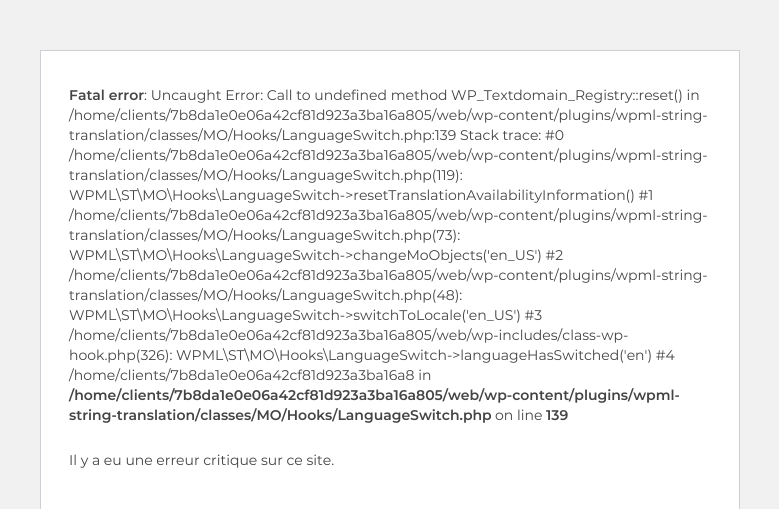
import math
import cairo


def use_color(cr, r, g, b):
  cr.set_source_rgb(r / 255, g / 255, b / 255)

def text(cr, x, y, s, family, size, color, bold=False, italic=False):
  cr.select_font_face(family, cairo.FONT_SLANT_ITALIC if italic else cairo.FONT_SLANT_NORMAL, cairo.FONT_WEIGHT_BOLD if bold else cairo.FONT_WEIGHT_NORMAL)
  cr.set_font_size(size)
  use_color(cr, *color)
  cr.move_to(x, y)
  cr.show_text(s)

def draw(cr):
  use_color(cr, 241, 241, 241)
  cr.paint()
  use_color(cr, 255, 255, 255)
  cr.rectangle(40.5, 50.5, 699, 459)
  cr.fill_preserve()
  use_color(cr, 204, 208, 212)
  cr.set_line_width(1)
  cr.stroke()
  text(cr, 69, 100, "Fatal error", "Montserrat SemiBold", 14, (68, 68, 68))
  text(cr, 144, 100, ": Uncaught Error: Call to undefined method WP_Textdomain_Registry::reset() in", "Montserrat", 14, (68, 68, 68))
  text(cr, 69, 120, "/home/clients/7b8da1e0e06a42cf81d923a3ba16a805/web/wp-content/plugins/wpml-string-", "Montserrat", 14, (68, 68, 68))
  text(cr, 69, 140, "translation/classes/MO/Hooks/LanguageSwitch.php:139 Stack trace: #0", "Montserrat", 14, (68, 68, 68))
  text(cr, 69, 160, "/home/clients/7b8da1e0e06a42cf81d923a3ba16a805/web/wp-content/plugins/wpml-string-", "Montserrat", 14, (68, 68, 68))
  text(cr, 69, 180, "translation/classes/MO/Hooks/LanguageSwitch.php(119):", "Montserrat", 14, (68, 68, 68))
  text(cr, 69, 200, "WPML\\ST\\MO\\Hooks\\LanguageSwitch->resetTranslationAvailabilityInformation() #1", "Montserrat", 14, (68, 68, 68))
  text(cr, 69, 220, "/home/clients/7b8da1e0e06a42cf81d923a3ba16a805/web/wp-content/plugins/wpml-string-", "Montserrat", 14, (68, 68, 68))
  text(cr, 69, 240, "translation/classes/MO/Hooks/LanguageSwitch.php(73):", "Montserrat", 14, (68, 68, 68))
  text(cr, 69, 260, "WPML\\ST\\MO\\Hooks\\LanguageSwitch->changeMoObjects('en_US') #2", "Montserrat", 14, (68, 68, 68))
  text(cr, 69, 280, "/home/clients/7b8da1e0e06a42cf81d923a3ba16a805/web/wp-content/plugins/wpml-string-", "Montserrat", 14, (68, 68, 68))
  text(cr, 69, 300, "translation/classes/MO/Hooks/LanguageSwitch.php(48):", "Montserrat", 14, (68, 68, 68))
  text(cr, 69, 320, "WPML\\ST\\MO\\Hooks\\LanguageSwitch->switchToLocale('en_US') #3", "Montserrat", 14, (68, 68, 68))
  text(cr, 69, 340, "/home/clients/7b8da1e0e06a42cf81d923a3ba16a805/web/wp-includes/class-wp-", "Montserrat", 14, (68, 68, 68))
  text(cr, 69, 360, "hook.php(326): WPML\\ST\\MO\\Hooks\\LanguageSwitch->languageHasSwitched('en') #4", "Montserrat", 14, (68, 68, 68))
  text(cr, 69, 380, "/home/clients/7b8da1e0e06a42cf81d923a3ba16a8 in", "Montserrat", 14, (68, 68, 68))
  text(cr, 69, 400, "/home/clients/7b8da1e0e06a42cf81d923a3ba16a805/web/wp-content/plugins/wpml-", "Montserrat SemiBold", 14, (68, 68, 68))
  text(cr, 69, 420, "string-translation/classes/MO/Hooks/LanguageSwitch.php", "Montserrat SemiBold", 14, (68, 68, 68))
  text(cr, 495, 420, "on line", "Montserrat", 14, (68, 68, 68))
  text(cr, 546, 420, "139", "Montserrat SemiBold", 14, (68, 68, 68))
  text(cr, 69, 465, "Il y a eu une erreur critique sur ce site.", "Montserrat", 14, (68, 68, 68))


surface = cairo.ImageSurface(cairo.FORMAT_RGB24, 779, 509)
cr = cairo.Context(surface)
options = cairo.FontOptions()
options.set_hint_metrics(cairo.HINT_METRICS_OFF)
options.set_hint_style(cairo.HINT_STYLE_NONE)
cr.set_font_options(options)
cr.set_miter_limit(4)
draw(cr)
surface.write_to_png("out.png")
